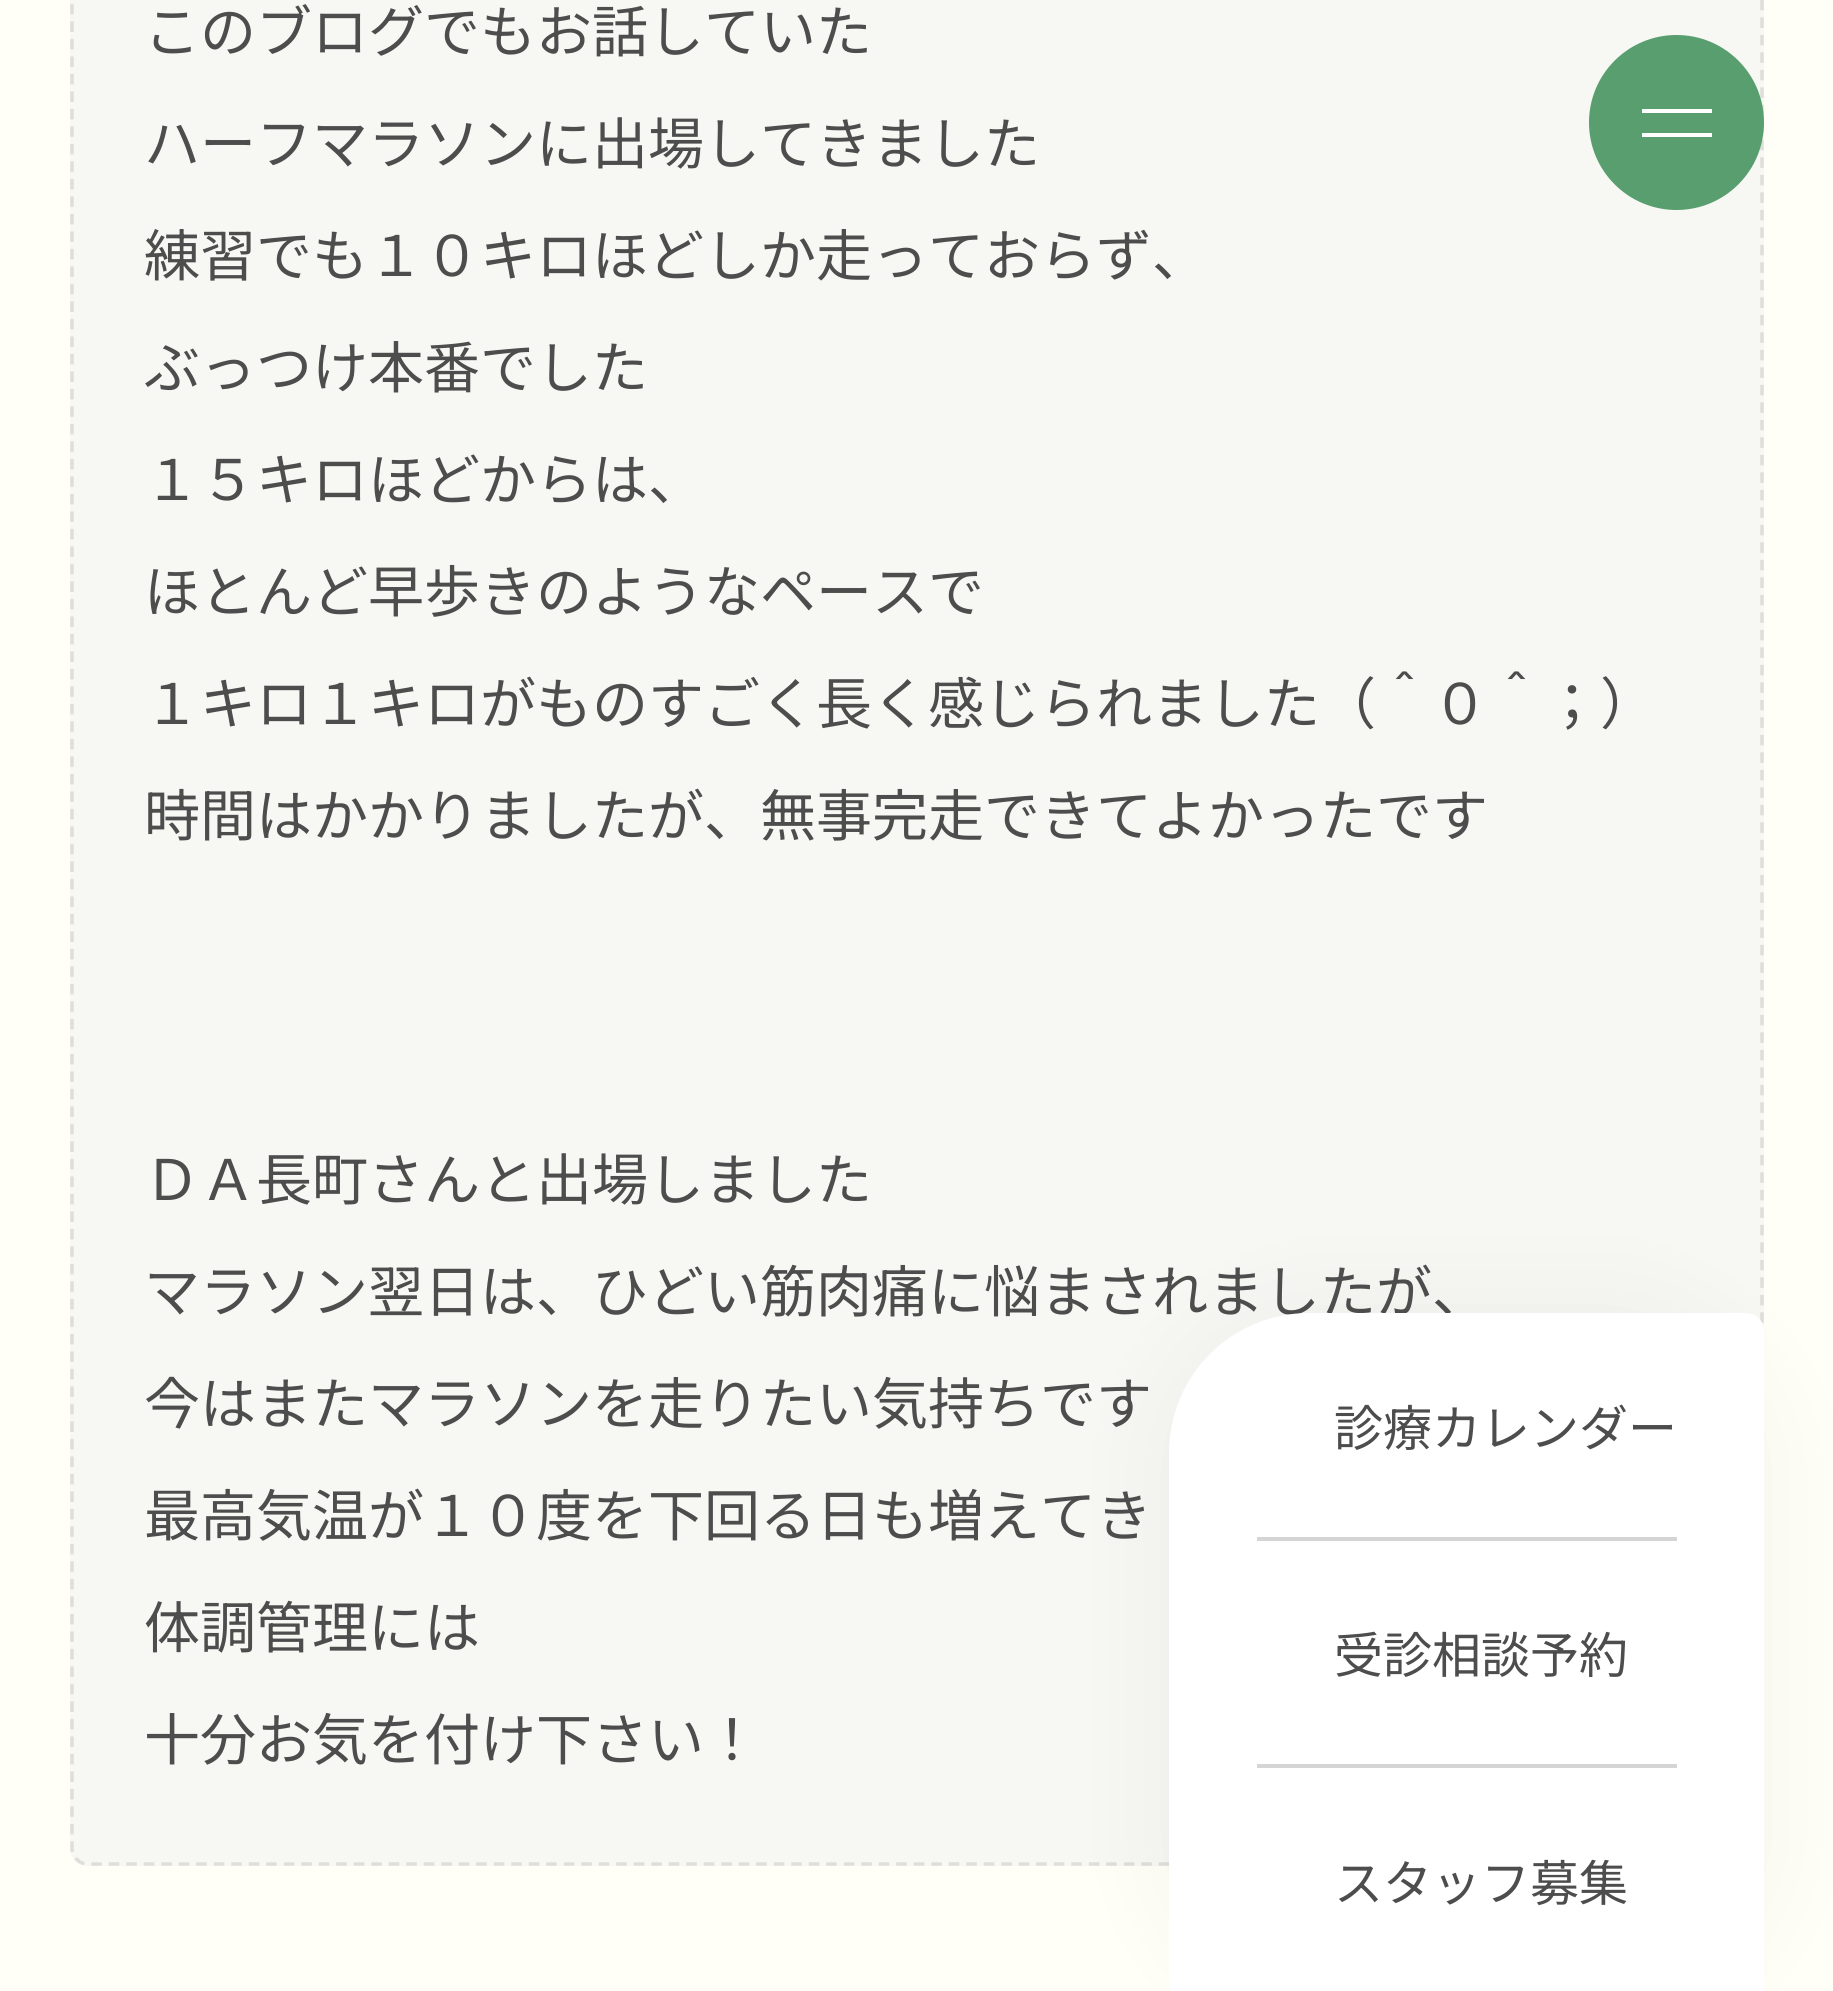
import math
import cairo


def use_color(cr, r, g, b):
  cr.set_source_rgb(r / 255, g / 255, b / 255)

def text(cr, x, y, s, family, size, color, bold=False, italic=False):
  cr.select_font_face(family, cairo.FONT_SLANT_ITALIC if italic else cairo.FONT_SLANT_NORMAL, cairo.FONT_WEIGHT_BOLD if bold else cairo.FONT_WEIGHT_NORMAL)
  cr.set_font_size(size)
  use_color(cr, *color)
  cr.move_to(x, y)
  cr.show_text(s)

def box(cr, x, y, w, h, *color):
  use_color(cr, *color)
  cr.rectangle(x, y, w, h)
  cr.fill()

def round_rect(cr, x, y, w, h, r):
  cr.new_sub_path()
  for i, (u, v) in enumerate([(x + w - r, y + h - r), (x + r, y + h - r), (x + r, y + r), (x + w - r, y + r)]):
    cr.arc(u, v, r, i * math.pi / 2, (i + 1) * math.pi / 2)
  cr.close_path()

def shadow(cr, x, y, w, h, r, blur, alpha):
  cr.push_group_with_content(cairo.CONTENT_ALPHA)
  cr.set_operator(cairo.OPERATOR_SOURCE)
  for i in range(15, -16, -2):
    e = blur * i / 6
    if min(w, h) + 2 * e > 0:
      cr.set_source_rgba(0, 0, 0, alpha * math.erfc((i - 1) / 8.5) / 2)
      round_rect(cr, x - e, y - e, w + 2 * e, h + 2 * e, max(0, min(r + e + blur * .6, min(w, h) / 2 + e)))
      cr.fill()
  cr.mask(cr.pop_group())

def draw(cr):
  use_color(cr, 255, 254, 247)
  cr.paint()
  use_color(cr, 247, 247, 243)
  round_rect(cr, 70, -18, 1694, 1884, 18)
  cr.fill()
  cr.new_path()
  cr.move_to(87.5, -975)
  cr.line_to(1746.5, -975)
  cr.curve_to(1755, -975, 1762, -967.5, 1762, -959)
  cr.line_to(1762, 1848)
  cr.curve_to(1762, 1856.5, 1755, 1864, 1746.5, 1864)
  cr.line_to(87.5, 1864)
  cr.curve_to(79, 1864, 72, 1856.5, 72, 1848)
  cr.line_to(72, -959)
  cr.curve_to(72, -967.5, 79, -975, 87.5, -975)
  cr.close_path()
  use_color(cr, 222, 222, 218)
  cr.set_line_width(3.5)
  cr.set_dash([10.5, 7])
  cr.stroke()
  use_color(cr, 88, 158, 110)
  cr.arc(1676.5, 122.5, 87.5, 0, 2 * math.pi)
  cr.fill()
  box(cr, 1642, 109, 70, 4, 255, 255, 255)
  box(cr, 1642, 133, 70, 4, 255, 255, 255)
  use_color(cr, 0, 0, 0)
  shadow(cr, 1169, 1313, 595, 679, 140, 52.5, 0.05)
  text(cr, 144, 52, "このブログでもお話していた", "Noto Sans JP Thin", 56, (77, 77, 77))
  text(cr, 144, 164, "ハーフマラソンに出場してきました", "Noto Sans JP Thin", 56, (77, 77, 77))
  text(cr, 144, 276, "練習でも１０キロほどしか走っておらず、", "Noto Sans JP Thin", 56, (77, 77, 77))
  text(cr, 144, 388, "ぶっつけ本番でした", "Noto Sans JP Thin", 56, (77, 77, 77))
  text(cr, 144, 500, "１５キロほどからは、", "Noto Sans JP Thin", 56, (77, 77, 77))
  text(cr, 144, 612, "ほとんど早歩きのようなペースで", "Noto Sans JP Thin", 56, (77, 77, 77))
  text(cr, 144, 724, "１キロ１キロがものすごく長く感じられました（＾０＾；）", "Noto Sans JP Thin", 56, (77, 77, 77))
  text(cr, 144, 836, "時間はかかりましたが、無事完走できてよかったです", "Noto Sans JP Thin", 56, (77, 77, 77))
  text(cr, 144, 1200, "ＤＡ長町さんと出場しました", "Noto Sans JP Thin", 56, (77, 77, 77))
  text(cr, 144, 1312, "マラソン翌日は、ひどい筋肉痛に悩まされましたが、", "Noto Sans JP Thin", 56, (77, 77, 77))
  text(cr, 144, 1424, "今はまたマラソンを走りたい気持ちです", "Noto Sans JP Thin", 56, (77, 77, 77))
  text(cr, 144, 1536, "最高気温が１０度を下回る日も増えてき", "Noto Sans JP Thin", 56, (77, 77, 77))
  text(cr, 144, 1648, "体調管理には", "Noto Sans JP Thin", 56, (77, 77, 77))
  text(cr, 144, 1760, "十分お気を付け下さい！", "Noto Sans JP Thin", 56, (77, 77, 77))
  use_color(cr, 255, 255, 255)
  cr.new_path()
  cr.move_to(1309, 1313)
  cr.line_to(1746, 1313)
  cr.curve_to(1756, 1313, 1764, 1321, 1764, 1331)
  cr.line_to(1764, 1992)
  cr.line_to(1169, 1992)
  cr.line_to(1169, 1453)
  cr.curve_to(1169, 1375.5, 1231.5, 1313, 1309, 1313)
  cr.close_path()
  cr.fill()
  box(cr, 1257, 1537, 420, 4, 213, 213, 213)
  text(cr, 1334, 1446, "診療カレンダー", "Noto Sans JP Thin", 49, (77, 77, 77))
  box(cr, 1257, 1764, 420, 4, 213, 213, 213)
  text(cr, 1334, 1673, "受診相談予約", "Noto Sans JP Thin", 49, (77, 77, 77))
  text(cr, 1334, 1901, "スタッフ募集", "Noto Sans JP Thin", 49, (77, 77, 77))


surface = cairo.ImageSurface(cairo.FORMAT_RGB24, 1833, 1991)
cr = cairo.Context(surface)
options = cairo.FontOptions()
options.set_hint_metrics(cairo.HINT_METRICS_OFF)
options.set_hint_style(cairo.HINT_STYLE_NONE)
cr.set_font_options(options)
cr.set_miter_limit(4)
draw(cr)
surface.write_to_png("out.png")
